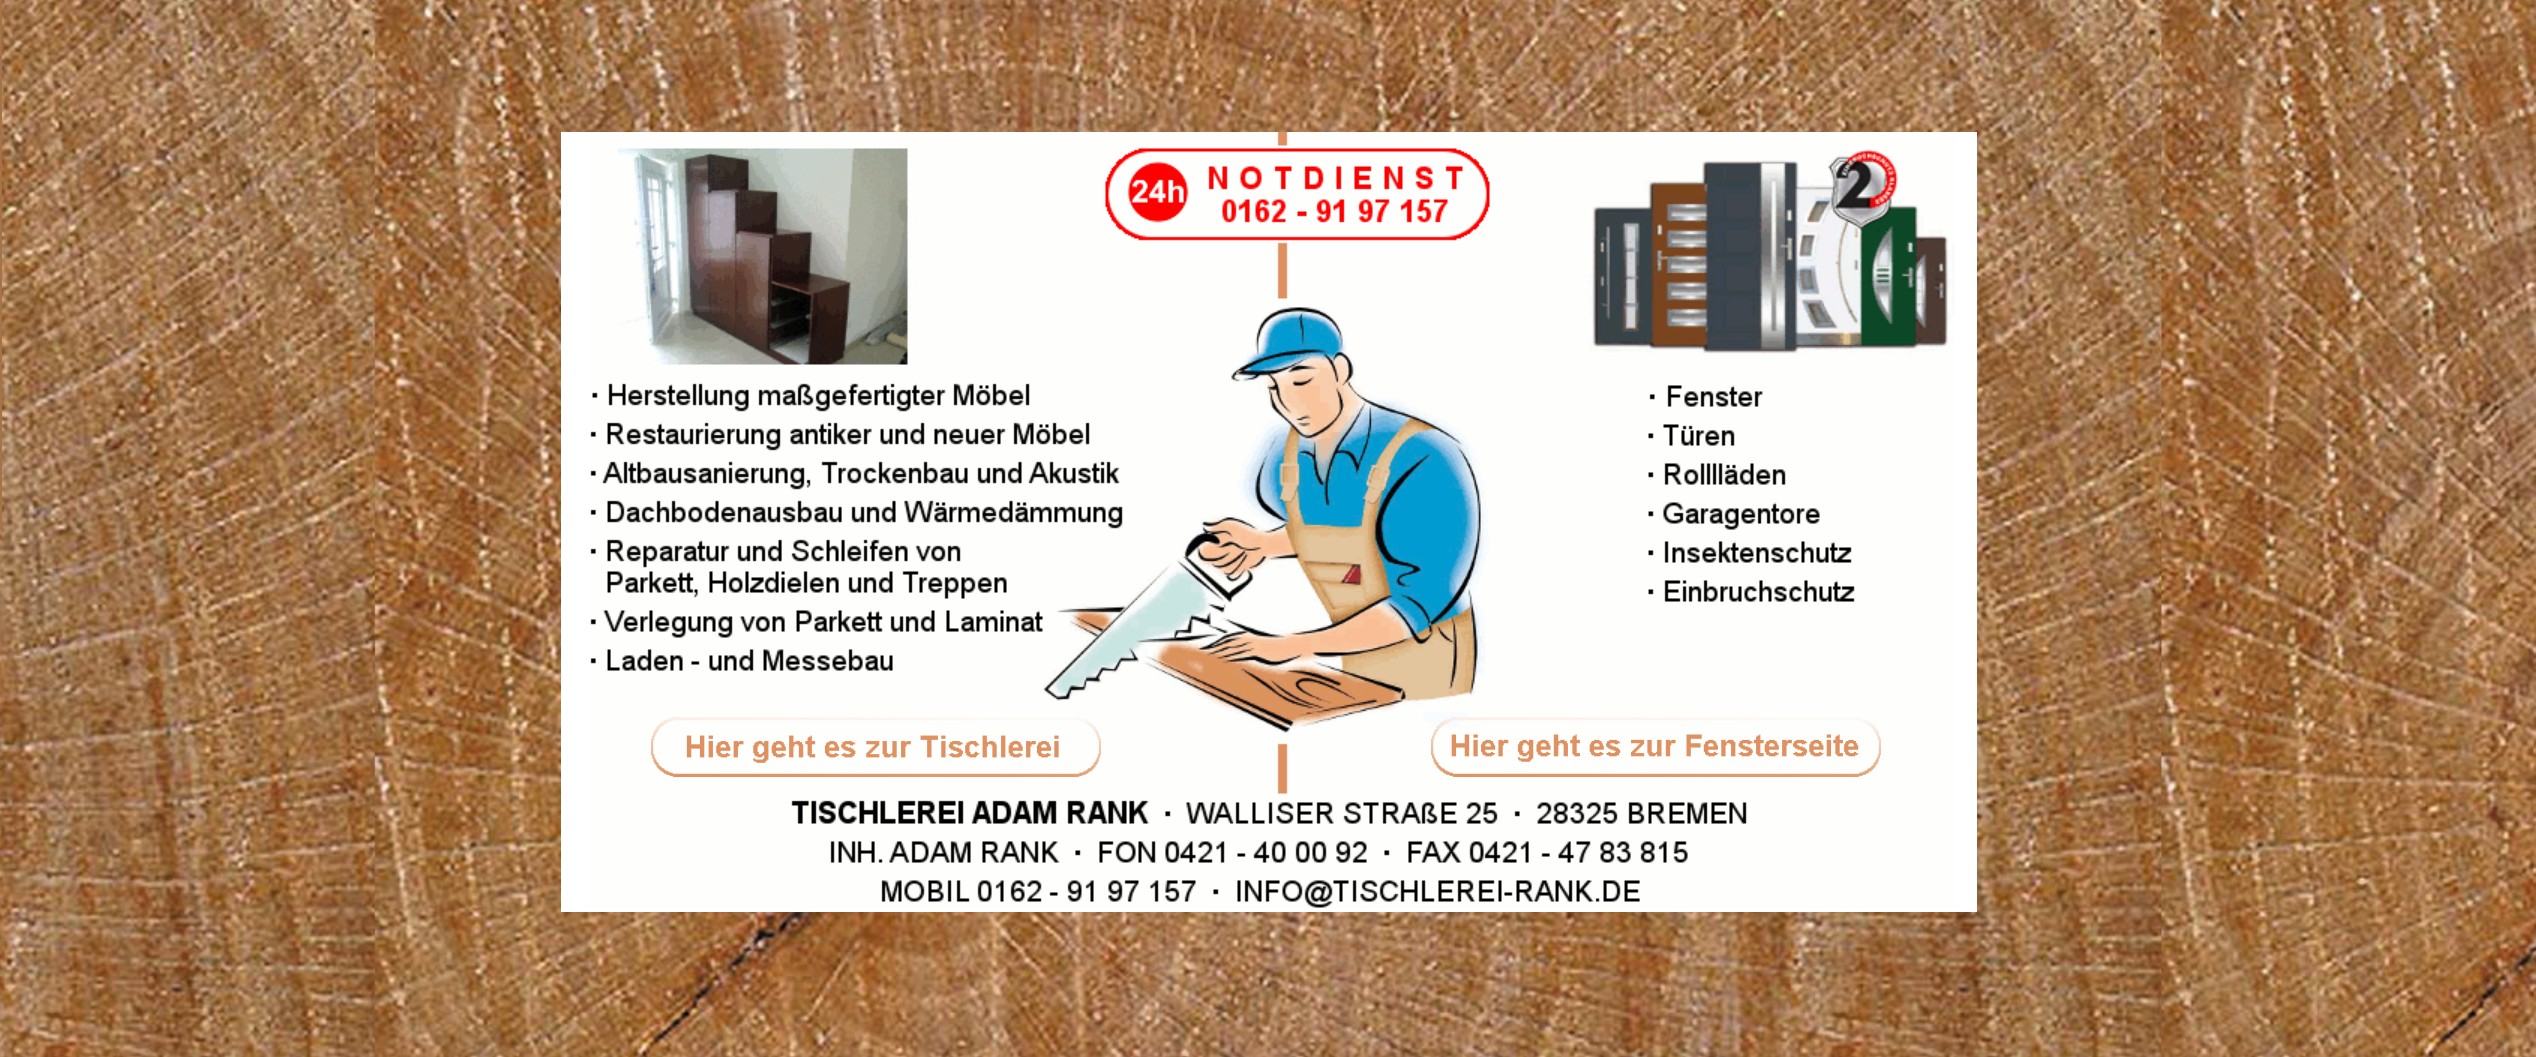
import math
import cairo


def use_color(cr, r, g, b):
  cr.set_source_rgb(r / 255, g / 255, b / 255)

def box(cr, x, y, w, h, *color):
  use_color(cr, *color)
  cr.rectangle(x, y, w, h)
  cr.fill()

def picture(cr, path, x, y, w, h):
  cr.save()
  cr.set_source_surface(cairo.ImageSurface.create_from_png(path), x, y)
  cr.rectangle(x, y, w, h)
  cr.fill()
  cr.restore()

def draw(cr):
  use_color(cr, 255, 255, 255)
  cr.paint()
  picture(cr, "img_01.png", 0, 0, 2536, 1057)
  box(cr, 0, 0, 2, 530, 167, 114, 69)
  box(cr, 561, 132, 1416, 780, 255, 255, 255)
  picture(cr, "img_02.png", 590, 132, 1365, 776)
  picture(cr, "img_03.png", 651, 717, 450, 60)
  picture(cr, "img_04.png", 1431, 717, 450, 60)


surface = cairo.ImageSurface(cairo.FORMAT_RGB24, 2536, 1057)
cr = cairo.Context(surface)
options = cairo.FontOptions()
options.set_hint_metrics(cairo.HINT_METRICS_OFF)
options.set_hint_style(cairo.HINT_STYLE_NONE)
cr.set_font_options(options)
cr.set_miter_limit(4)
draw(cr)
surface.write_to_png("out.png")
